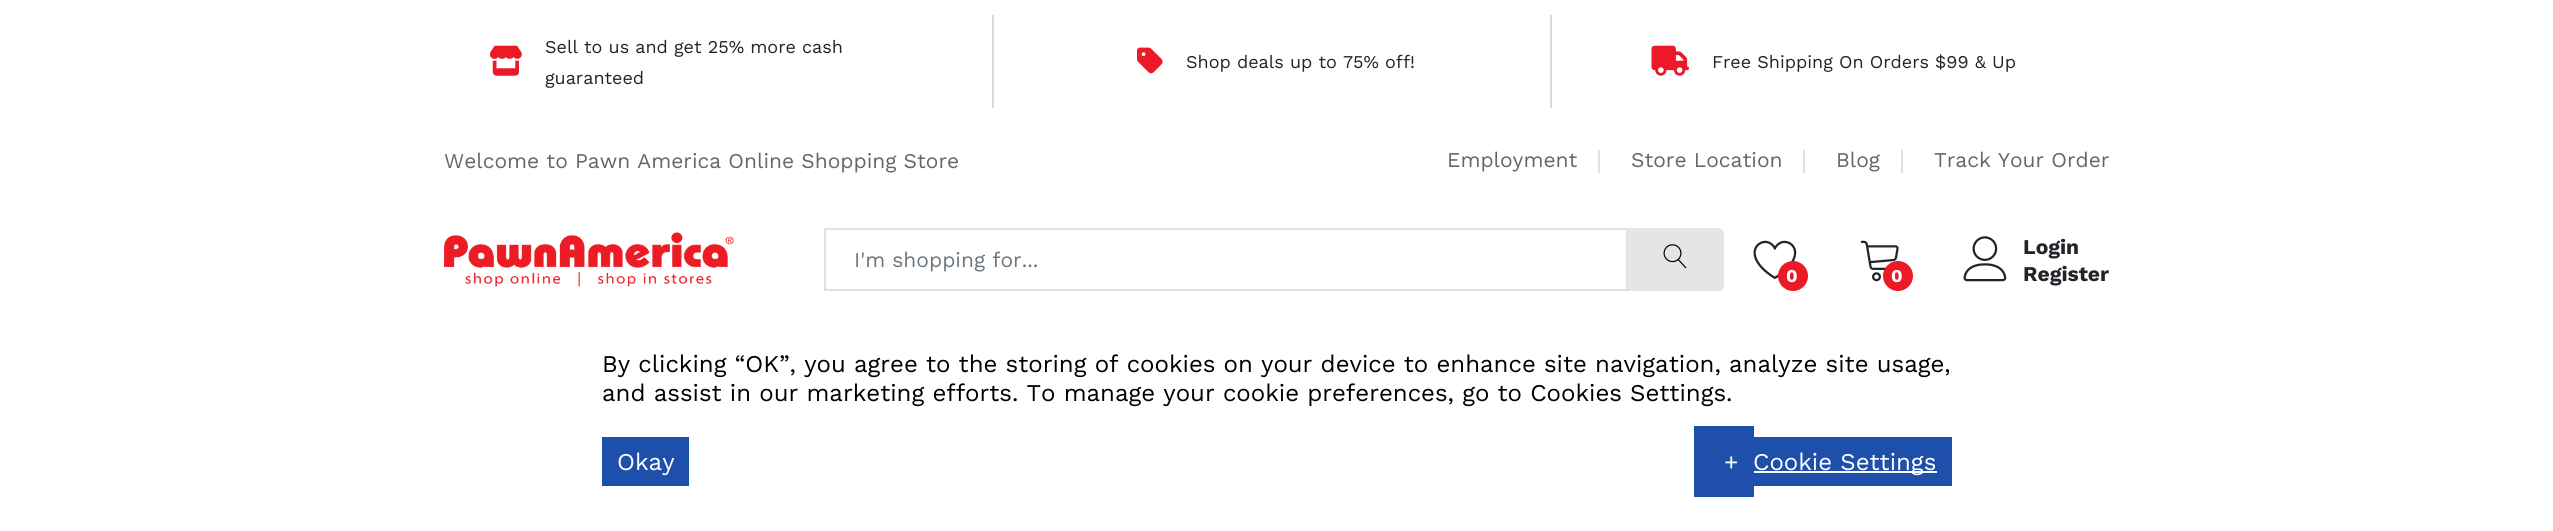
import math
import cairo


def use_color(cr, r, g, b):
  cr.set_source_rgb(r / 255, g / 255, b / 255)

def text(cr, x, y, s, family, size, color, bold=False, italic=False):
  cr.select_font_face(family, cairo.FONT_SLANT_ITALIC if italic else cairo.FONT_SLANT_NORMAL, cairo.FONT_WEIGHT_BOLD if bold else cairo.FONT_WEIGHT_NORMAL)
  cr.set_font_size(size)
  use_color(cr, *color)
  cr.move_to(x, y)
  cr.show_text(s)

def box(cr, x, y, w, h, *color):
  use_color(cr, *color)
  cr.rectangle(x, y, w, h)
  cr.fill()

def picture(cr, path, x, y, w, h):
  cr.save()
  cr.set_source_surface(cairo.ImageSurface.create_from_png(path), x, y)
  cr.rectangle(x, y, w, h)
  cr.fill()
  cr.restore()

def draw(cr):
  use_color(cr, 255, 255, 255)
  cr.paint()
  box(cr, 992, 15, 2, 93, 218, 218, 218)
  picture(cr, "img_01.png", 489, 45, 33, 31)
  box(cr, 1550, 15, 2, 93, 218, 218, 218)
  picture(cr, "img_02.png", 1137, 47, 26, 27)
  picture(cr, "img_03.png", 1651, 45, 38, 31)
  box(cr, 1598, 150, 2, 23, 225, 225, 225)
  box(cr, 1803, 150, 2, 23, 225, 225, 225)
  box(cr, 1901, 150, 2, 23, 225, 225, 225)
  picture(cr, "img_04.png", 444, 232, 290, 55)
  cr.rectangle(825, 229, 802, 61)
  cr.stroke()
  use_color(cr, 229, 229, 229)
  cr.new_path()
  cr.move_to(1628, 228)
  cr.line_to(1718, 228)
  cr.curve_to(1721.5, 228, 1724, 230.5, 1724, 234)
  cr.line_to(1724, 285)
  cr.curve_to(1724, 288.5, 1721.5, 291, 1718, 291)
  cr.line_to(1628, 291)
  cr.close_path()
  cr.fill()
  picture(cr, "img_05.png", 1663, 244, 24, 25)
  picture(cr, "img_06.png", 1753, 240, 44, 39)
  use_color(cr, 236, 26, 38)
  cr.arc(1793, 276, 15, 0, 2 * math.pi)
  cr.fill()
  picture(cr, "img_07.png", 1860, 240, 39, 42)
  cr.arc(1898, 276, 15, 0, 2 * math.pi)
  cr.fill()
  picture(cr, "img_08.png", 1963, 236, 44, 46)
  box(cr, 602, 437, 87, 49, 30, 80, 171)
  box(cr, 1694, 426, 60, 71, 30, 80, 171)
  box(cr, 1754, 437, 198, 49, 30, 80, 171)
  box(cr, 1754, 471, 183, 2, 255, 255, 255)
  text(cr, 545, 53, "Sell to us and get 25% more cash", "Work Sans", 18, (33, 37, 41))
  text(cr, 545, 84, "guaranteed", "Work Sans", 18, (33, 37, 41))
  text(cr, 1186, 68, "Shop deals up to 75% off!", "Work Sans", 18, (33, 37, 41))
  text(cr, 1712, 68, "Free Shipping On Orders $99 & Up", "Work Sans", 18, (33, 37, 41))
  text(cr, 444, 168, "Welcome to Pawn America Online Shopping Store", "Work Sans", 21, (102, 102, 102))
  text(cr, 1447, 167, "Employment", "Work Sans", 21, (102, 102, 102))
  text(cr, 1631, 167, "Store Location", "Work Sans", 21, (102, 102, 102))
  text(cr, 1836, 167, "Blog", "Work Sans", 21, (102, 102, 102))
  text(cr, 1934, 167, "Track Your Order", "Work Sans", 21, (102, 102, 102))
  text(cr, 854, 267, "I'm shopping for...", "Work Sans", 21, (108, 117, 125))
  text(cr, 1786, 282, "0", "Work Sans", 18, (255, 255, 255), bold=True)
  text(cr, 1891, 282, "0", "Work Sans", 18, (255, 255, 255), bold=True)
  text(cr, 2023, 254, "Login", "Work Sans", 21, (33, 37, 41), bold=True)
  text(cr, 2023, 281, "Register", "Work Sans", 21, (33, 37, 41), bold=True)
  text(cr, 602, 372, "By clicking “OK”, you agree to the storing of cookies on your device to enhance site navigation, analyze site usage,", "Work Sans", 24, (0, 0, 0))
  text(cr, 602, 401, "and assist in our marketing efforts. To manage your cookie preferences, go to Cookies Settings.", "Work Sans", 24, (0, 0, 0))
  text(cr, 617, 470, "Okay", "Work Sans", 24, (255, 255, 255))
  text(cr, 1724, 470, "+", "Work Sans", 24, (255, 255, 255))
  text(cr, 1753, 470, "Cookie Settings", "Work Sans", 24, (255, 255, 255))


surface = cairo.ImageSurface(cairo.FORMAT_RGB24, 2553, 531)
cr = cairo.Context(surface)
options = cairo.FontOptions()
options.set_hint_metrics(cairo.HINT_METRICS_OFF)
options.set_hint_style(cairo.HINT_STYLE_NONE)
cr.set_font_options(options)
cr.set_miter_limit(4)
draw(cr)
surface.write_to_png("out.png")
